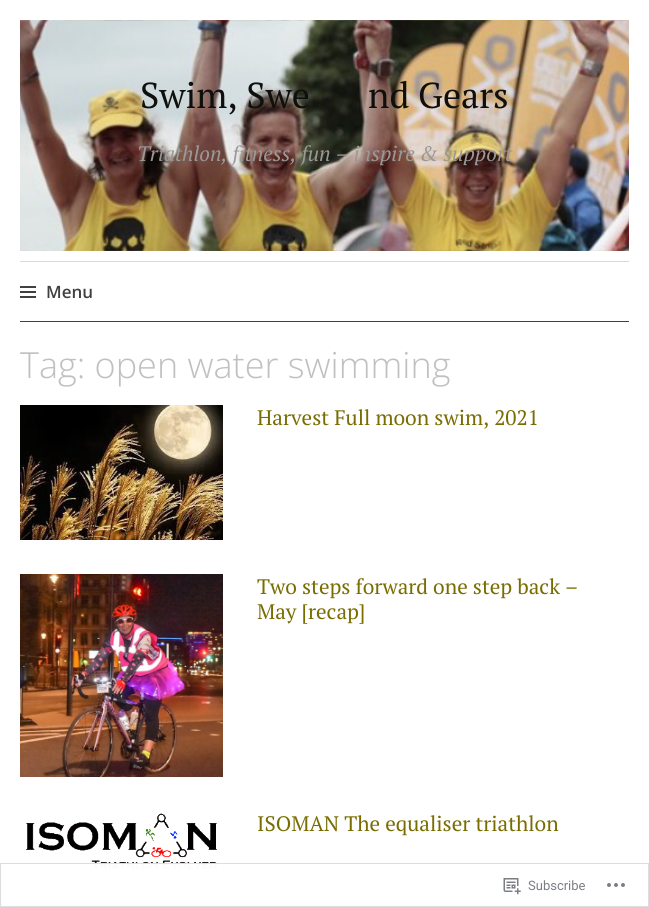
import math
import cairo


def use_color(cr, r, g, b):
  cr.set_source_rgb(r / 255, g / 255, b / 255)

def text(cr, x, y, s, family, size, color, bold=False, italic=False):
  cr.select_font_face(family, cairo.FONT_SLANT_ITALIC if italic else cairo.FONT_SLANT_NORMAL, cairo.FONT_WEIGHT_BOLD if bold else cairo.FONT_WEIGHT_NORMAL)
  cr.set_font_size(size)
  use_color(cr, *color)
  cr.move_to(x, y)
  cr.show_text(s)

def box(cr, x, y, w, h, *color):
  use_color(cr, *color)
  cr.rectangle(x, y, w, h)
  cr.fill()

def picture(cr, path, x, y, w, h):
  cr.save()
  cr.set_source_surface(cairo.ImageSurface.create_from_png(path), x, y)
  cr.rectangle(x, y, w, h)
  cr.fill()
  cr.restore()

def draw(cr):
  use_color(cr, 255, 255, 255)
  cr.paint()
  picture(cr, "img_01.png", 20, 20, 609, 231)
  box(cr, 20, 261, 609, 1, 217, 217, 217)
  box(cr, 20, 321, 609, 1, 64, 64, 64)
  picture(cr, "img_02.png", 20, 286, 16, 12)
  picture(cr, "img_03.png", 20, 405, 203, 135)
  picture(cr, "img_04.png", 20, 574, 203, 203)
  picture(cr, "img_05.png", 26, 813, 191, 56)
  box(cr, 20, 905, 609, 2, 217, 217, 217)
  cr.set_source_rgba(1, 1, 1, 0.98)
  cr.rectangle(20, 863, 609, 44)
  cr.fill()
  cr.rectangle(0.5, 863.5, 648, 43)
  cr.set_source_rgba(0.863, 0.863, 0.871, 0.98)
  cr.set_line_width(1)
  cr.stroke()
  picture(cr, "img_06.png", 503, 878, 18, 17)
  picture(cr, "img_07.png", 607, 883, 18, 4)
  text(cr, 140, 108, "Swim, Swe", "PT Serif", 36, (15, 16, 14))
  text(cr, 368, 108, "nd Gears", "PT Serif", 36, (15, 16, 14))
  text(cr, 137, 161, "Triathlon, fitness, fun – inspire & support", "PT Serif", 21, (153, 153, 153), italic=True)
  text(cr, 46, 298, "Menu", "Open Sans SemiBold", 17, (64, 64, 64))
  text(cr, 20, 378, "Tag: open water swimming", "Open Sans Light", 36, (192, 192, 192))
  text(cr, 257, 425, "Harvest Full moon swim, 2021", "PT Serif", 21, (121, 109, 1))
  text(cr, 257, 594, "Two steps forward one step back –", "PT Serif", 21, (121, 109, 1))
  text(cr, 257, 619, "May [recap]", "PT Serif", 21, (121, 109, 1))
  text(cr, 257, 831, "ISOMAN The equaliser triathlon", "PT Serif", 21, (121, 109, 1))
  text(cr, 528, 890, "Subscribe", "Roboto", 13, (123, 127, 133))


surface = cairo.ImageSurface(cairo.FORMAT_RGB24, 649, 907)
cr = cairo.Context(surface)
options = cairo.FontOptions()
options.set_hint_metrics(cairo.HINT_METRICS_OFF)
options.set_hint_style(cairo.HINT_STYLE_NONE)
cr.set_font_options(options)
cr.set_miter_limit(4)
draw(cr)
surface.write_to_png("out.png")
